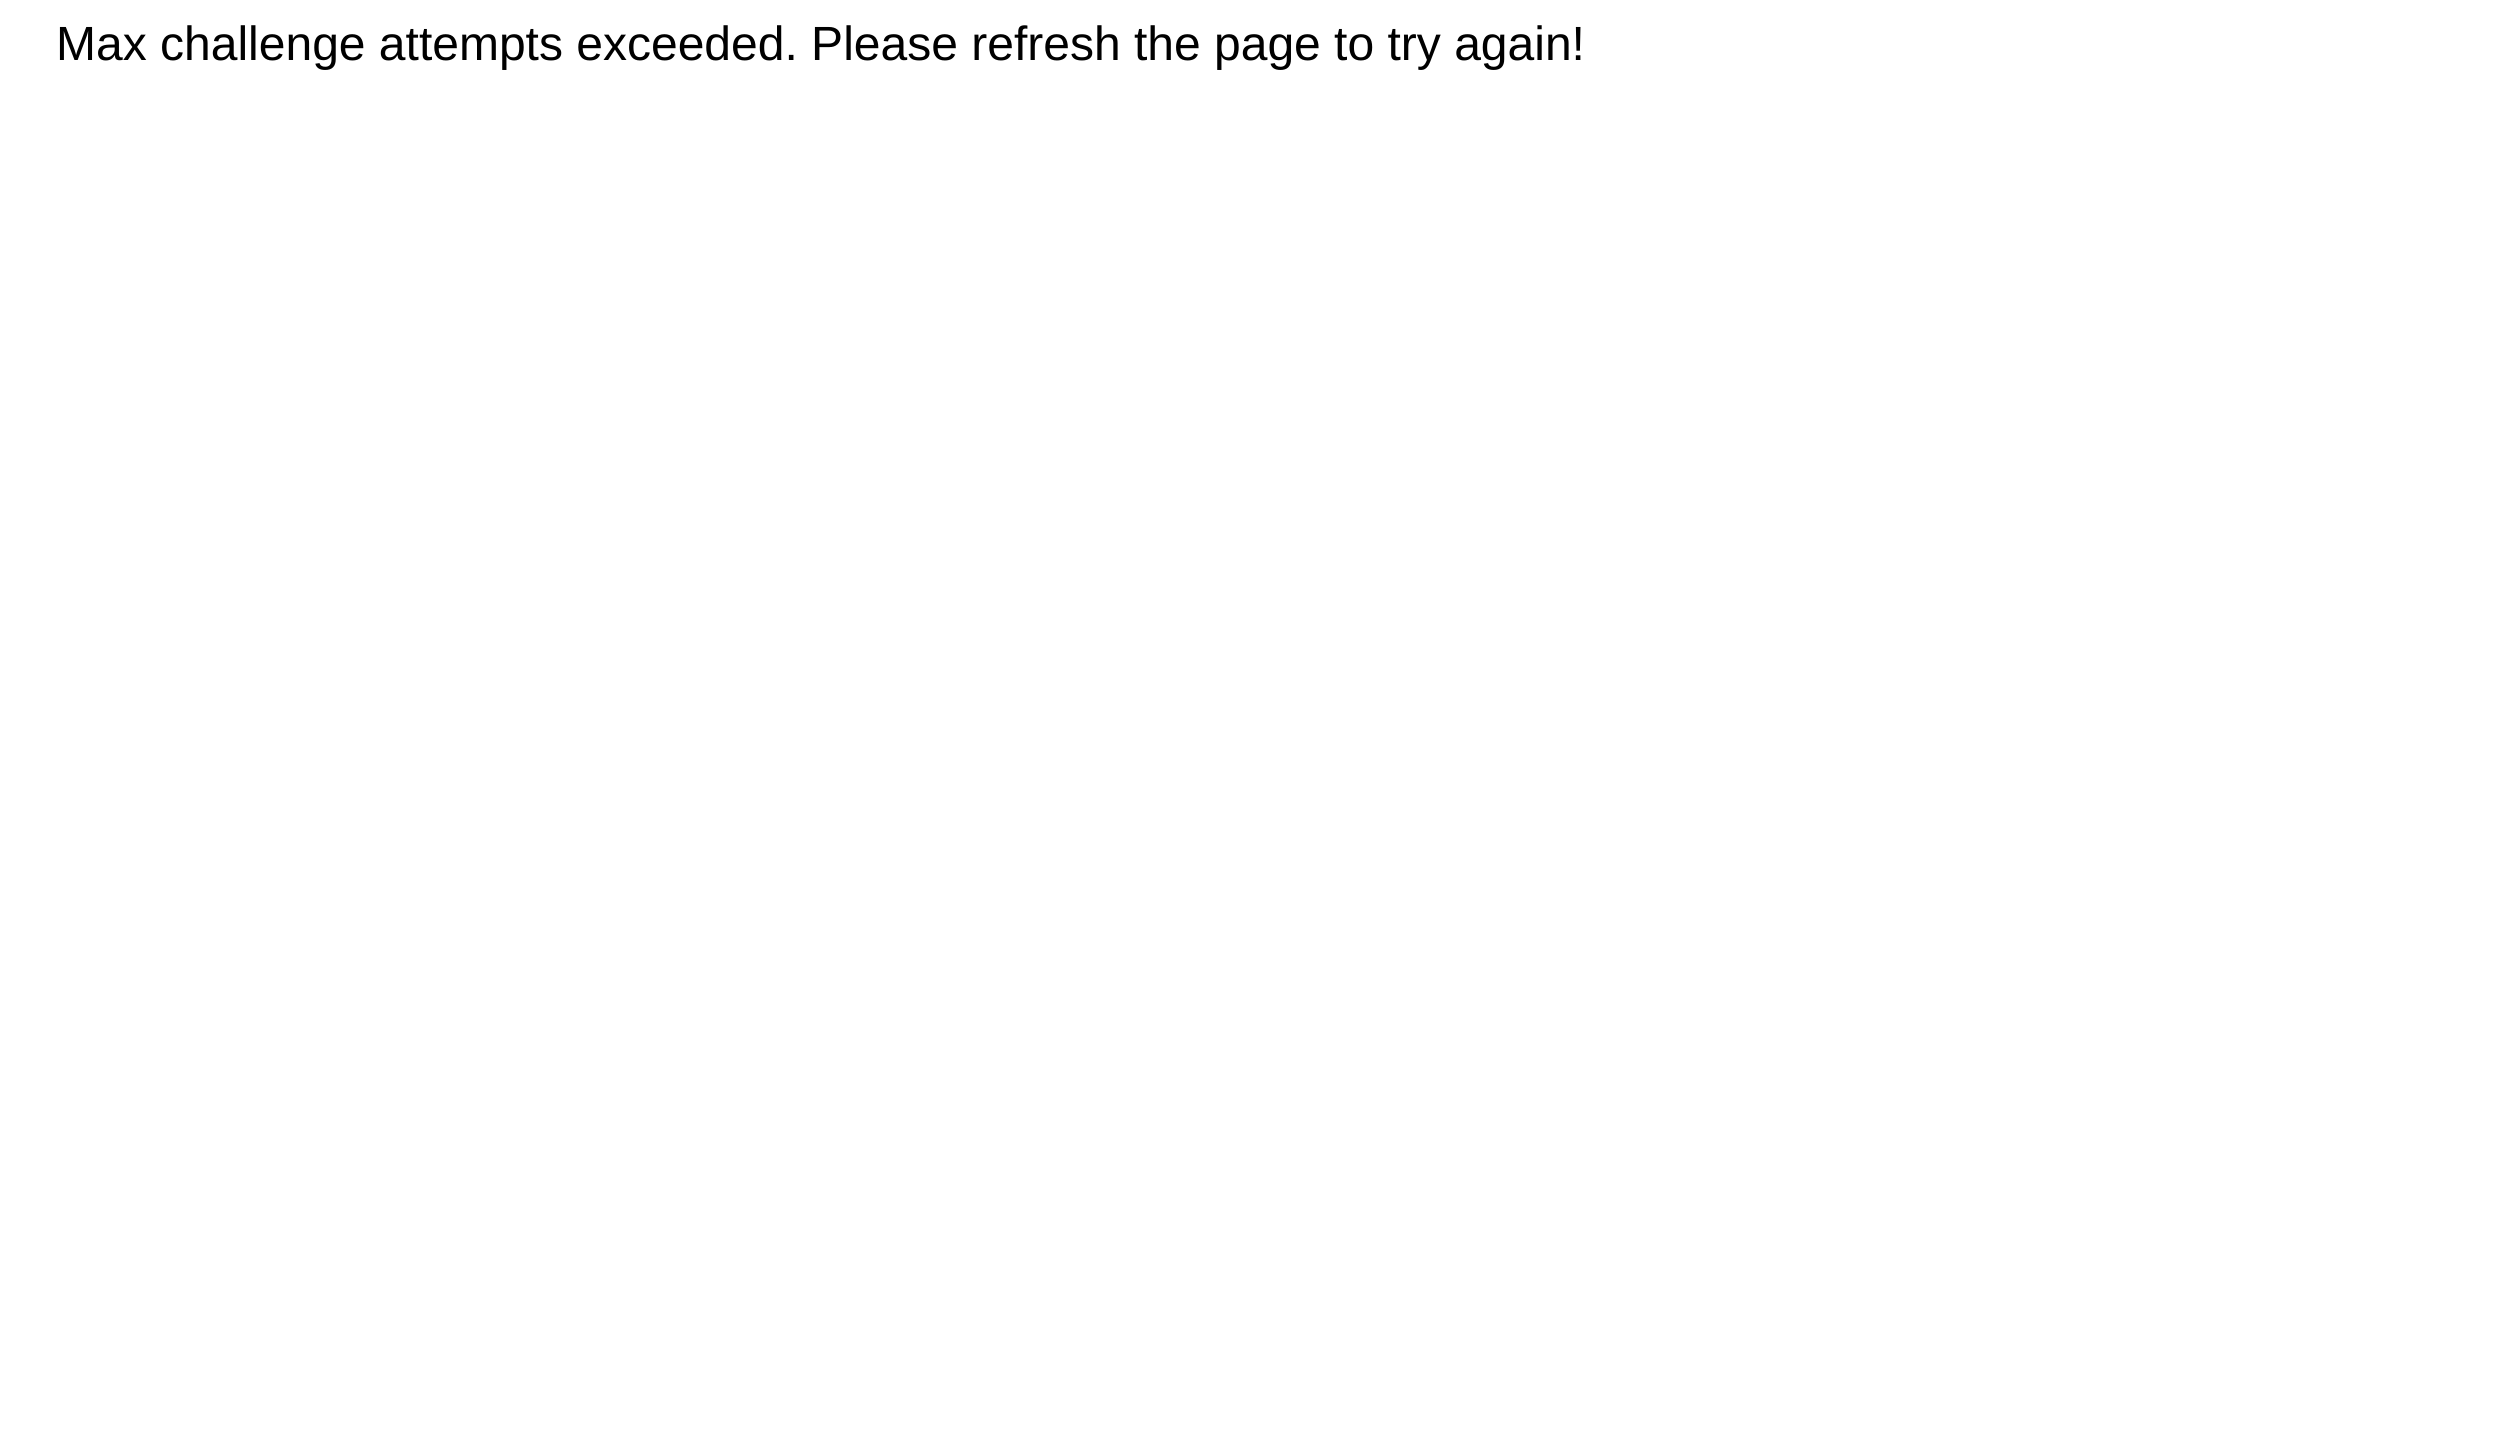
import math
import cairo


def use_color(cr, r, g, b):
  cr.set_source_rgb(r / 255, g / 255, b / 255)

def text(cr, x, y, s, family, size, color, bold=False, italic=False):
  cr.select_font_face(family, cairo.FONT_SLANT_ITALIC if italic else cairo.FONT_SLANT_NORMAL, cairo.FONT_WEIGHT_BOLD if bold else cairo.FONT_WEIGHT_NORMAL)
  cr.set_font_size(size)
  use_color(cr, *color)
  cr.move_to(x, y)
  cr.show_text(s)

def draw(cr):
  use_color(cr, 255, 255, 255)
  cr.paint()
  text(cr, 56, 60, "Max challenge attempts exceeded. Please refresh the page to try again!", "Liberation Sans", 48, (0, 0, 0))


surface = cairo.ImageSurface(cairo.FORMAT_RGB24, 2511, 1453)
cr = cairo.Context(surface)
options = cairo.FontOptions()
options.set_hint_metrics(cairo.HINT_METRICS_OFF)
options.set_hint_style(cairo.HINT_STYLE_NONE)
cr.set_font_options(options)
cr.set_miter_limit(4)
draw(cr)
surface.write_to_png("out.png")
